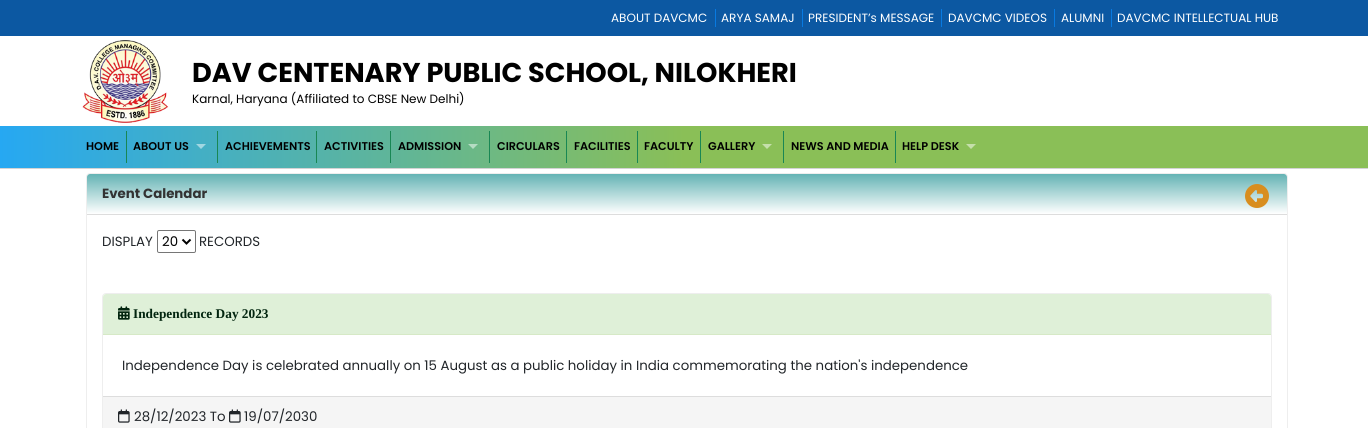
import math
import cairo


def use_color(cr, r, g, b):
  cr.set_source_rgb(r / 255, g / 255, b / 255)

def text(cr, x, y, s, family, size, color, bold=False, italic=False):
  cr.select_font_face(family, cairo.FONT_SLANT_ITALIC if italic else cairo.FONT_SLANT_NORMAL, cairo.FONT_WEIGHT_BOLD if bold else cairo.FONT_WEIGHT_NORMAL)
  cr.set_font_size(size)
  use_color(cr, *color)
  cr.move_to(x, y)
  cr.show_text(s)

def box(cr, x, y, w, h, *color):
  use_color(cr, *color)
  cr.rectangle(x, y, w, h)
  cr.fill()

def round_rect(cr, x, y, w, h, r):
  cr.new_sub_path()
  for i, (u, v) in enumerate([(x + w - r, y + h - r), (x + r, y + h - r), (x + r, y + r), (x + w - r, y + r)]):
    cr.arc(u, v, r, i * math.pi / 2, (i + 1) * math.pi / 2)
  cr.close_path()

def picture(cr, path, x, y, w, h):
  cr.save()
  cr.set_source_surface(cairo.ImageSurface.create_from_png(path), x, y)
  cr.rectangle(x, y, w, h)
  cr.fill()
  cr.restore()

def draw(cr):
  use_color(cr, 255, 255, 255)
  cr.paint()
  box(cr, 0, 0, 1368, 36, 12, 88, 162)
  box(cr, 715, 9, 1, 18, 8, 122, 225)
  box(cr, 802, 9, 1, 18, 8, 122, 225)
  box(cr, 941, 9, 1, 18, 8, 122, 225)
  box(cr, 1054, 9, 1, 18, 8, 122, 225)
  box(cr, 1111, 9, 1, 18, 8, 122, 225)
  picture(cr, "img_01.png", 82, 40, 87, 83)
  gradient = cairo.LinearGradient(0, 147, 1368, 147)
  gradient.add_color_stop_rgba(0, 0.149, 0.659, 0.949, 1)
  gradient.add_color_stop_rgba(0.5, 0.541, 0.749, 0.341, 1)
  cr.set_source(gradient)
  cr.rectangle(0, 126, 1368, 42)
  cr.fill()
  box(cr, 0, 168, 1368, 1, 211, 211, 212)
  box(cr, 126, 131, 1, 32, 25, 135, 84)
  box(cr, 217, 131, 1, 32, 25, 135, 84)
  use_color(cr, 161, 215, 226)
  cr.new_path()
  cr.move_to(196, 144)
  cr.line_to(206, 144)
  cr.line_to(201, 149)
  cr.close_path()
  cr.fill()
  box(cr, 316, 131, 1, 32, 25, 135, 84)
  box(cr, 390, 131, 1, 32, 25, 135, 84)
  box(cr, 489, 131, 1, 32, 25, 135, 84)
  use_color(cr, 181, 220, 195)
  cr.new_path()
  cr.move_to(468, 144)
  cr.line_to(478, 144)
  cr.line_to(473, 149)
  cr.close_path()
  cr.fill()
  box(cr, 566, 131, 1, 32, 25, 135, 84)
  box(cr, 637, 131, 1, 32, 25, 135, 84)
  box(cr, 700, 131, 1, 32, 25, 135, 84)
  box(cr, 783, 131, 1, 32, 25, 135, 84)
  use_color(cr, 197, 223, 171)
  cr.new_path()
  cr.move_to(762, 144)
  cr.line_to(772, 144)
  cr.line_to(767, 149)
  cr.close_path()
  cr.fill()
  box(cr, 895, 131, 1, 32, 25, 135, 84)
  use_color(cr, 197, 223, 171)
  cr.new_path()
  cr.move_to(966, 144)
  cr.line_to(976, 144)
  cr.line_to(971, 149)
  cr.close_path()
  cr.fill()
  round_rect(cr, 86.5, 173.5, 1201, 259, 3.5)
  use_color(cr, 238, 238, 238)
  cr.set_line_width(1)
  cr.stroke()
  gradient = cairo.LinearGradient(687, 174, 687, 214)
  gradient.add_color_stop_rgba(0, 0.392, 0.702, 0.706, 1)
  gradient.add_color_stop_rgba(1, 1, 1, 1, 1)
  cr.set_source(gradient)
  cr.new_path()
  cr.move_to(90, 174)
  cr.line_to(1284, 174)
  cr.curve_to(1285.5, 174, 1287, 175.5, 1287, 177)
  cr.line_to(1287, 214)
  cr.line_to(87, 214)
  cr.line_to(87, 177)
  cr.curve_to(87, 175.5, 88.5, 174, 90, 174)
  cr.close_path()
  cr.fill()
  box(cr, 87, 214, 1200, 1, 221, 221, 221)
  picture(cr, "img_02.png", 1245, 184, 24, 24)
  round_rect(cr, 157.5, 230.5, 38, 22, 1.5)
  use_color(cr, 118, 118, 118)
  cr.stroke()
  cr.new_path()
  cr.move_to(182.5, 239.5)
  cr.line_to(186.5, 243.5)
  cr.line_to(190.5, 239.5)
  use_color(cr, 0, 0, 0)
  cr.set_line_width(2)
  cr.stroke()
  round_rect(cr, 102.5, 293.5, 1169, 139, 3.5)
  use_color(cr, 238, 238, 238)
  cr.set_line_width(1)
  cr.stroke()
  use_color(cr, 223, 240, 216)
  cr.new_path()
  cr.move_to(106, 294)
  cr.line_to(1268, 294)
  cr.curve_to(1269.5, 294, 1271, 295.5, 1271, 297)
  cr.line_to(1271, 335)
  cr.line_to(103, 335)
  cr.line_to(103, 297)
  cr.curve_to(103, 295.5, 104.5, 294, 106, 294)
  cr.close_path()
  cr.fill()
  box(cr, 103, 334, 1168, 1, 214, 233, 198)
  picture(cr, "img_03.png", 118, 306, 12, 14)
  box(cr, 103, 397, 1168, 31, 245, 245, 245)
  box(cr, 103, 396, 1168, 1, 221, 221, 221)
  picture(cr, "img_04.png", 118, 409, 12, 14)
  picture(cr, "img_04.png", 229, 409, 12, 14)
  text(cr, 611, 22, "ABOUT DAVCMC", "Poppins", 12, (255, 255, 255))
  text(cr, 721, 22, "ARYA SAMAJ", "Poppins", 12, (255, 255, 255))
  text(cr, 808, 22, "PRESIDENT’s MESSAGE", "Poppins", 12, (255, 255, 255))
  text(cr, 948, 22, "DAVCMC VIDEOS", "Poppins", 12, (255, 255, 255))
  text(cr, 1061, 22, "ALUMNI", "Poppins", 12, (255, 255, 255))
  text(cr, 1117, 22, "DAVCMC INTELLECTUAL HUB", "Poppins", 12, (255, 255, 255))
  text(cr, 192, 82, "DAV CENTENARY PUBLIC SCHOOL, NILOKHERI", "Poppins", 27.2, (0, 0, 0), bold=True)
  text(cr, 192, 103, "Karnal, Haryana (Affiliated to CBSE New Delhi)", "Poppins", 12, (0, 0, 0))
  text(cr, 86, 150, "HOME", "Poppins SemiBold", 11.25, (0, 0, 0))
  text(cr, 133, 150, "ABOUT US", "Poppins SemiBold", 11.25, (0, 0, 0))
  text(cr, 225, 150, "ACHIEVEMENTS", "Poppins SemiBold", 11.25, (0, 0, 0))
  text(cr, 324, 150, "ACTIVITIES", "Poppins SemiBold", 11.25, (0, 0, 0))
  text(cr, 398, 150, "ADMISSION", "Poppins SemiBold", 11.25, (0, 0, 0))
  text(cr, 497, 150, "CIRCULARS", "Poppins SemiBold", 11.25, (0, 0, 0))
  text(cr, 574, 150, "FACILITIES", "Poppins SemiBold", 11.25, (0, 0, 0))
  text(cr, 644, 150, "FACULTY", "Poppins SemiBold", 11.25, (0, 0, 0))
  text(cr, 708, 150, "GALLERY", "Poppins SemiBold", 11.25, (0, 0, 0))
  text(cr, 791, 150, "NEWS AND MEDIA", "Poppins SemiBold", 11.25, (0, 0, 0))
  text(cr, 902, 150, "HELP DESK", "Poppins SemiBold", 11.25, (0, 0, 0))
  text(cr, 102, 198, "Event Calendar", "Poppins", 13.33, (51, 51, 51), bold=True)
  text(cr, 102, 246, "DISPLAY", "Poppins", 13.33, (33, 37, 41))
  text(cr, 162, 246, "20", "Poppins", 13.33, (0, 0, 0))
  text(cr, 199, 246, "RECORDS", "Poppins", 13.33, (33, 37, 41))
  text(cr, 133, 318, "Independence Day 2023", "Liberation Serif", 13.33, (2, 37, 15), bold=True)
  text(cr, 122, 370, "Independence Day is celebrated annually on 15 August as a public holiday in India commemorating the nation's independence", "Poppins", 13.33, (33, 37, 41))
  text(cr, 134, 421, "28/12/2023 To", "Poppins", 13.33, (33, 37, 41))
  text(cr, 244, 421, "19/07/2030", "Poppins", 13.33, (33, 37, 41))


surface = cairo.ImageSurface(cairo.FORMAT_RGB24, 1368, 428)
cr = cairo.Context(surface)
options = cairo.FontOptions()
options.set_hint_metrics(cairo.HINT_METRICS_OFF)
options.set_hint_style(cairo.HINT_STYLE_NONE)
cr.set_font_options(options)
cr.set_miter_limit(4)
draw(cr)
surface.write_to_png("out.png")
